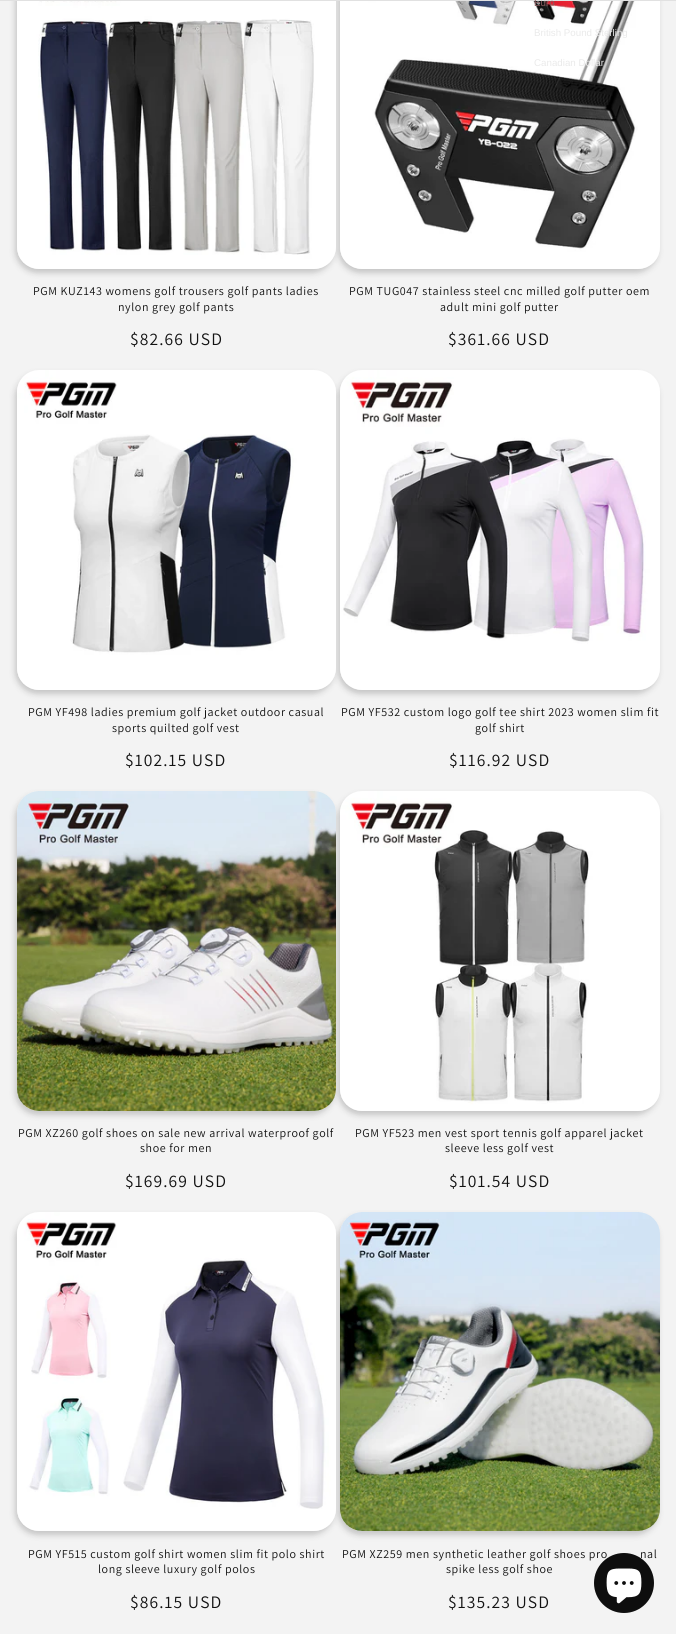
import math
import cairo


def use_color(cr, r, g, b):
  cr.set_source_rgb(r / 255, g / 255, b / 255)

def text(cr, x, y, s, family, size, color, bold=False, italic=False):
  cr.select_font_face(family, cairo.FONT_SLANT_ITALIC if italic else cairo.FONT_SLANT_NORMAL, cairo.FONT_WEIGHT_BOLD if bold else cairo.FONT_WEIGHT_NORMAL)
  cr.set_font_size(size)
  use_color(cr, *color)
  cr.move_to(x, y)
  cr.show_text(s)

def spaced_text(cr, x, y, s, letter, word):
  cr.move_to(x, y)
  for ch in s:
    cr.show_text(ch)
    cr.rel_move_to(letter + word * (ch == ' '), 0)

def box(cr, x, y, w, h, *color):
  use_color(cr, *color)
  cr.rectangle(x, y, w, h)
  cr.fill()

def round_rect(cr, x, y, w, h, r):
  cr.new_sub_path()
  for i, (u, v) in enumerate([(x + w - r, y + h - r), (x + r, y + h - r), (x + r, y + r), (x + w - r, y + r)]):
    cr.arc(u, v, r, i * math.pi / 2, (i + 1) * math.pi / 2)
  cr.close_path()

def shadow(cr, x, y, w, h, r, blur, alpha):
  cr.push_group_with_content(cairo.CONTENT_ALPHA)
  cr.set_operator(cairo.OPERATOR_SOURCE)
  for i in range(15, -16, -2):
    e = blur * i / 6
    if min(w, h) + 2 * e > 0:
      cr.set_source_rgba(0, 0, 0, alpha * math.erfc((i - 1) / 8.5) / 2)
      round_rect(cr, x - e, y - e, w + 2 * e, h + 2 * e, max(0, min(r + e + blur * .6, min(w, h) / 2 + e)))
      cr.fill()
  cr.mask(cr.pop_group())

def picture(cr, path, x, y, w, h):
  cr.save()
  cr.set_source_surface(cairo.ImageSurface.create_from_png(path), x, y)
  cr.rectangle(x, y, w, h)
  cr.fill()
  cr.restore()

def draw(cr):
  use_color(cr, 243, 243, 243)
  cr.paint()
  use_color(cr, 18, 18, 18)
  shadow(cr, 15, -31, 319, 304, 22, 3, 0.2)
  shadow(cr, 338, -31, 320, 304, 22, 3, 0.2)
  use_color(cr, 243, 243, 243)
  round_rect(cr, 17, -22, 319, 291, 22)
  cr.fill()
  round_rect(cr, 340, -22, 320, 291, 22)
  cr.fill()
  box(cr, 0, 0, 676, 1, 225, 225, 225)
  picture(cr, "img_01.png", 17, 1, 319, 268)
  picture(cr, "img_02.png", 340, 1, 320, 268)
  use_color(cr, 18, 18, 18)
  shadow(cr, 15, 374, 319, 320, 22, 3, 0.2)
  shadow(cr, 338, 374, 320, 320, 22, 3, 0.2)
  use_color(cr, 243, 243, 243)
  round_rect(cr, 17, 370, 319, 320, 22)
  cr.fill()
  picture(cr, "img_03.png", 17, 370, 319, 320)
  round_rect(cr, 340, 370, 320, 320, 22)
  cr.fill()
  picture(cr, "img_04.png", 340, 370, 320, 320)
  use_color(cr, 18, 18, 18)
  shadow(cr, 15, 795, 319, 320, 22, 3, 0.2)
  shadow(cr, 338, 795, 320, 320, 22, 3, 0.2)
  use_color(cr, 243, 243, 243)
  round_rect(cr, 17, 791, 319, 320, 22)
  cr.fill()
  picture(cr, "img_05.png", 17, 791, 319, 320)
  round_rect(cr, 340, 791, 320, 320, 22)
  cr.fill()
  picture(cr, "img_06.png", 340, 791, 320, 320)
  use_color(cr, 18, 18, 18)
  shadow(cr, 15, 1216, 319, 319, 22, 3, 0.2)
  shadow(cr, 338, 1216, 320, 319, 22, 3, 0.2)
  use_color(cr, 243, 243, 243)
  round_rect(cr, 17, 1212, 319, 319, 22)
  cr.fill()
  picture(cr, "img_07.png", 17, 1212, 319, 319)
  round_rect(cr, 340, 1212, 320, 319, 22)
  cr.fill()
  picture(cr, "img_08.png", 340, 1212, 320, 319)
  text(cr, 534, 6, "Euro", "Liberation Sans", 9.75, (137, 90, 94))
  text(cr, 534, 36, "British Pound Sterling", "Liberation Sans", 9.75, (234, 234, 234))
  text(cr, 534, 66, "Canadian Dollar", "Liberation Sans", 9.75, (234, 234, 234))
  cr.select_font_face("Assistant")
  cr.set_font_size(12)
  use_color(cr, 18, 18, 18)
  spaced_text(cr, 33, 295, "PGM KUZ143 womens golf trousers golf pants ladies", 0.6, 0)
  spaced_text(cr, 118, 311, "nylon grey golf pants", 0.6, 0)
  cr.set_font_size(17.5)
  spaced_text(cr, 130, 345, "$82.66 USD", 1.1, 0)
  cr.set_font_size(12)
  spaced_text(cr, 349, 295, "PGM TUG047 stainless steel cnc milled golf putter oem", 0.6, 0)
  spaced_text(cr, 440, 311, "adult mini golf putter", 0.6, 0)
  cr.set_font_size(17.5)
  spaced_text(cr, 448, 345, "$361.66 USD", 1.1, 0)
  cr.set_font_size(12)
  spaced_text(cr, 28, 716, "PGM YF498 ladies premium golf jacket outdoor casual", 0.6, 0)
  spaced_text(cr, 112, 732, "sports quilted golf vest", 0.6, 0)
  cr.set_font_size(17.5)
  spaced_text(cr, 125, 766, "$102.15 USD", 1.1, 0)
  cr.set_font_size(12)
  spaced_text(cr, 341, 716, "PGM YF532 custom logo golf tee shirt 2023 women slim fit", 0.6, 0)
  spaced_text(cr, 475, 732, "golf shirt", 0.6, 0)
  cr.set_font_size(17.5)
  spaced_text(cr, 449, 766, "$116.92 USD", 1.1, 0)
  cr.set_font_size(12)
  spaced_text(cr, 18, 1137, "PGM XZ260 golf shoes on sale new arrival waterproof golf", 0.6, 0)
  spaced_text(cr, 140, 1152, "shoe for men", 0.6, 0)
  cr.set_font_size(17.5)
  spaced_text(cr, 125, 1187, "$169.69 USD", 1.1, 0)
  cr.set_font_size(12)
  spaced_text(cr, 355, 1137, "PGM YF523 men vest sport tennis golf apparel jacket", 0.6, 0)
  spaced_text(cr, 445, 1152, "sleeve less golf vest", 0.6, 0)
  cr.set_font_size(17.5)
  spaced_text(cr, 449, 1187, "$101.54 USD", 1.1, 0)
  cr.set_font_size(12)
  spaced_text(cr, 28, 1558, "PGM YF515 custom golf shirt women slim fit polo shirt", 0.6, 0)
  spaced_text(cr, 98, 1573, "long sleeve luxury golf polos", 0.6, 0)
  cr.set_font_size(17.5)
  spaced_text(cr, 130, 1608, "$86.15 USD", 1.1, 0)
  cr.set_font_size(12)
  spaced_text(cr, 342, 1558, "PGM XZ259 men synthetic leather golf shoes pro", 0.6, 0)
  spaced_text(cr, 640, 1558, "nal", 0.6, 0)
  spaced_text(cr, 446, 1573, "spike less golf shoe", 0.6, 0)
  cr.set_font_size(17.5)
  spaced_text(cr, 448, 1608, "$135.23 USD", 1.1, 0)
  use_color(cr, 14, 14, 14)
  cr.new_path()
  cr.arc(624, 1583, 30, 0, 2 * math.pi)
  cr.fill()
  picture(cr, "img_09.png", 606, 1568, 36, 36)


surface = cairo.ImageSurface(cairo.FORMAT_RGB24, 676, 1634)
cr = cairo.Context(surface)
options = cairo.FontOptions()
options.set_hint_metrics(cairo.HINT_METRICS_OFF)
options.set_hint_style(cairo.HINT_STYLE_NONE)
cr.set_font_options(options)
cr.set_miter_limit(4)
draw(cr)
surface.write_to_png("out.png")
